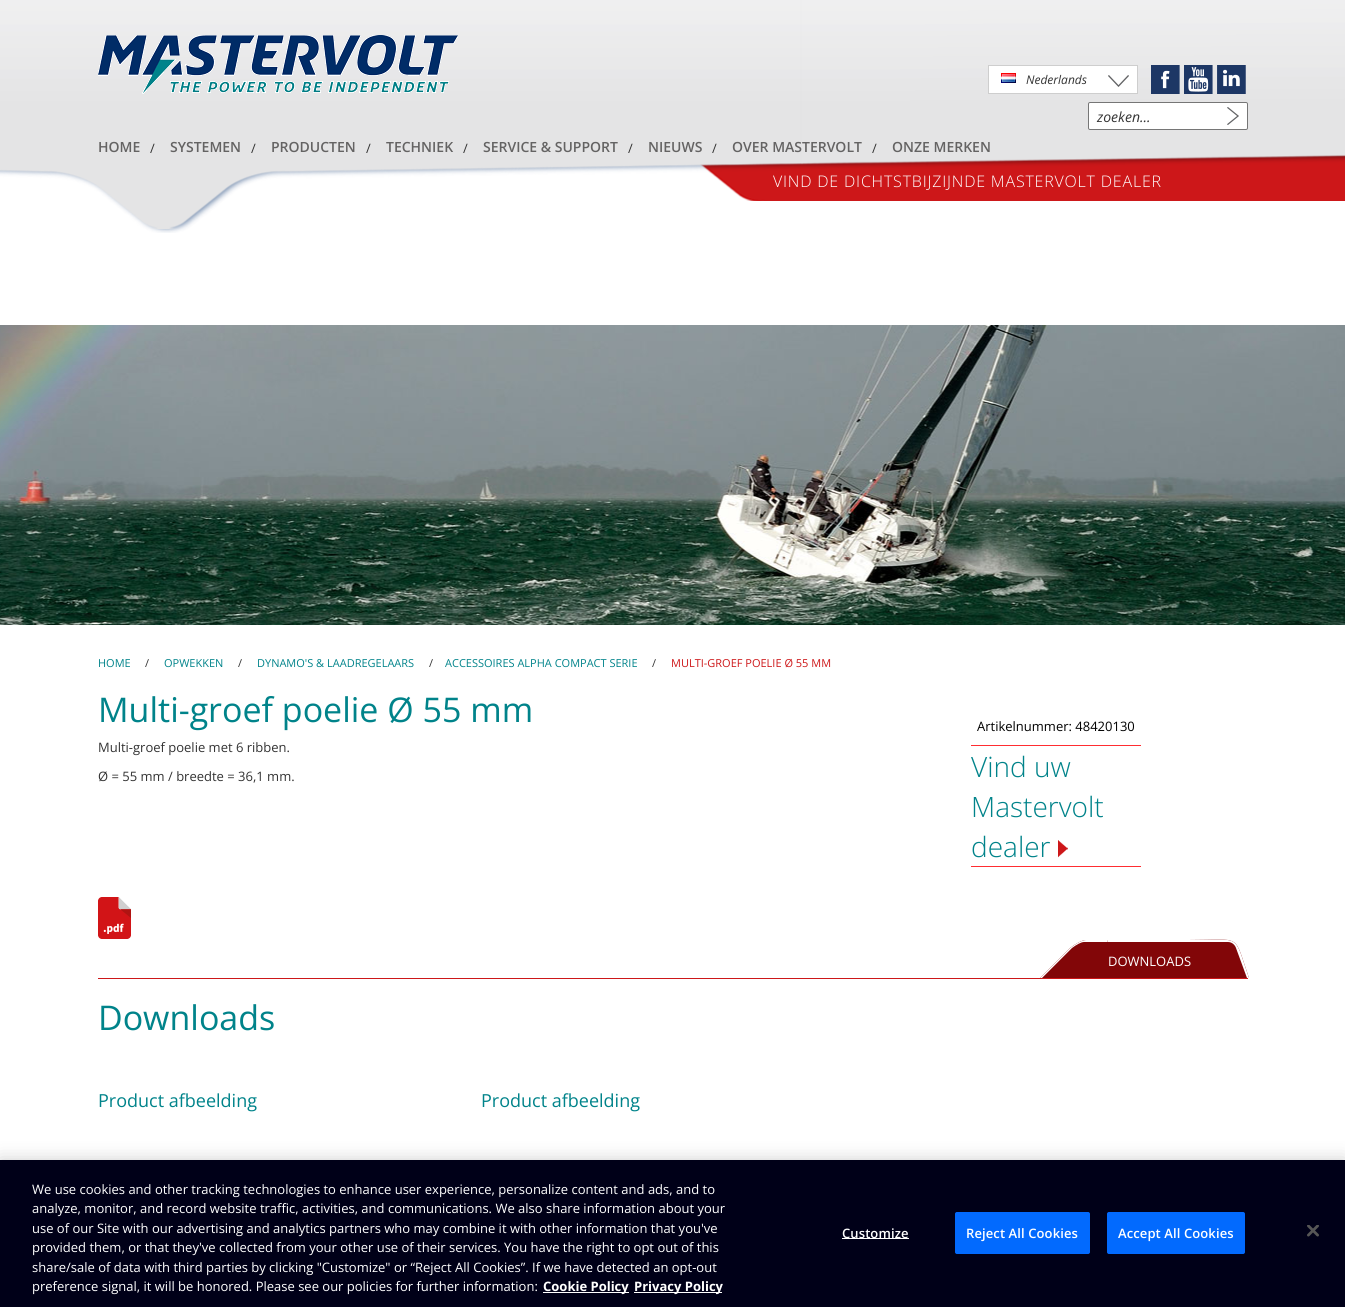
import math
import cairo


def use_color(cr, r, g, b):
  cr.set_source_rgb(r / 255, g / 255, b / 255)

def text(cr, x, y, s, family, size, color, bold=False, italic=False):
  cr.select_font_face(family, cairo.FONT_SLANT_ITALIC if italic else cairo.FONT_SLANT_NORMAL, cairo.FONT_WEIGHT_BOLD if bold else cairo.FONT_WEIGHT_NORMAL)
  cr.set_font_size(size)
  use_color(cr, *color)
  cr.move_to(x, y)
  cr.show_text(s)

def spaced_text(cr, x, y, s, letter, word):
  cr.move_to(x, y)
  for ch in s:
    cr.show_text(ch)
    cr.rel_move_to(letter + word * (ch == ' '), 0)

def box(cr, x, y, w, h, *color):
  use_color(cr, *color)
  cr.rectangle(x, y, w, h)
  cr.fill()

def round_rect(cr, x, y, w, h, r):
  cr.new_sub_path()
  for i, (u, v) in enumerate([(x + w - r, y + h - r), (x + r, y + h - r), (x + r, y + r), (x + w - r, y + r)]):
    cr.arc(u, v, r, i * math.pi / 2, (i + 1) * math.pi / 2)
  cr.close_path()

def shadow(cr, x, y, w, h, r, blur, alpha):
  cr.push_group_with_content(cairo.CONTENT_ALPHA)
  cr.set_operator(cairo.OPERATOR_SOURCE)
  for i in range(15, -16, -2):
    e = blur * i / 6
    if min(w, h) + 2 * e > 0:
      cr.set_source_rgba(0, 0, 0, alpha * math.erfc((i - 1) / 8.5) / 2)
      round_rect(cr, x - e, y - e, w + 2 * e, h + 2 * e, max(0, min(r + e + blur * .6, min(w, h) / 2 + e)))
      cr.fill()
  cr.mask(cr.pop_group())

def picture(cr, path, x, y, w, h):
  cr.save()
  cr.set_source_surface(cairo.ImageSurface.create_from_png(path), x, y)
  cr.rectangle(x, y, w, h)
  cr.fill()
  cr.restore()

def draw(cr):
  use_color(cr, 255, 255, 255)
  cr.paint()
  picture(cr, "img_01.png", 0, 0, 1345, 233)
  use_color(cr, 255, 255, 255)
  cr.rectangle(988.5, 65.5, 149, 28)
  cr.fill_preserve()
  use_color(cr, 206, 206, 206)
  cr.set_line_width(1)
  cr.stroke()
  picture(cr, "img_02.png", 1001, 73, 15, 10)
  picture(cr, "img_03.png", 1108, 75, 21, 12)
  picture(cr, "img_04.png", 1151, 65, 29, 29)
  picture(cr, "img_05.png", 1184, 65, 29, 29)
  picture(cr, "img_06.png", 1217, 65, 29, 29)
  use_color(cr, 255, 255, 255)
  round_rect(cr, 1088.5, 102.5, 159, 27, 1.5)
  cr.fill_preserve()
  use_color(cr, 118, 118, 118)
  cr.stroke()
  picture(cr, "img_07.png", 1227, 107, 12, 18)
  picture(cr, "img_08.png", 98, 35, 360, 59)
  picture(cr, "img_09.png", 0, 325, 1345, 300)
  box(cr, 971, 745, 170, 1, 255, 45, 49)
  box(cr, 971, 866, 170, 1, 255, 45, 49)
  picture(cr, "img_10.png", 1058, 840, 10, 18)
  picture(cr, "img_11.png", 98, 897, 33, 42)
  box(cr, 98, 978, 1150, 1, 205, 23, 25)
  use_color(cr, 130, 6, 8)
  cr.new_path()
  cr.move_to(1086, 940)
  cr.line_to(1207, 940)
  cr.line_to(1169, 978)
  cr.line_to(1040, 978)
  cr.line_to(1070, 948)
  cr.curve_to(1075, 944, 1082, 940, 1086, 940)
  cr.close_path()
  cr.fill()
  use_color(cr, 255, 255, 255)
  cr.set_fill_rule(cairo.FILL_RULE_EVEN_ODD)
  cr.new_path()
  cr.move_to(1086, 940)
  cr.line_to(1207, 940)
  cr.line_to(1169, 978)
  cr.line_to(1040, 978)
  cr.line_to(1070, 948)
  cr.curve_to(1075, 944, 1082, 940, 1086, 940)
  cr.close_path()
  cr.move_to(1084, 942)
  cr.line_to(1205, 942)
  cr.line_to(1169, 978)
  cr.line_to(1042, 978)
  cr.line_to(1072, 948)
  cr.curve_to(1076, 945, 1081, 942, 1084, 942)
  cr.close_path()
  cr.fill()
  use_color(cr, 130, 6, 8)
  cr.set_fill_rule(cairo.FILL_RULE_WINDING)
  cr.new_path()
  cr.move_to(1107, 940)
  cr.line_to(1188, 940)
  cr.curve_to(1243, 940, 1233, 932, 1249, 978)
  cr.line_to(1121, 978)
  cr.close_path()
  cr.fill()
  use_color(cr, 255, 255, 255)
  cr.set_fill_rule(cairo.FILL_RULE_EVEN_ODD)
  cr.new_path()
  cr.move_to(1107, 940)
  cr.line_to(1188, 940)
  cr.curve_to(1243, 940, 1233, 932, 1249, 978)
  cr.line_to(1121, 978)
  cr.close_path()
  cr.move_to(1108, 942)
  cr.line_to(1228, 942)
  cr.curve_to(1232, 942, 1235, 945, 1236, 948)
  cr.line_to(1247, 978)
  cr.line_to(1121, 978)
  cr.close_path()
  cr.fill()
  box(cr, 1107, 942, 14, 35, 130, 6, 8)
  use_color(cr, 0, 0, 0)
  shadow(cr, 0, 1160, 1345, 147, 0, 9, 0.2)
  box(cr, 0, 1160, 1345, 147, 0, 0, 24)
  box(cr, 543, 1292, 86, 1, 255, 255, 255)
  box(cr, 634, 1292, 88, 1, 255, 255, 255)
  box(cr, 842, 1238, 67, 1, 255, 255, 255)
  use_color(cr, 2, 106, 254)
  round_rect(cr, 955.5, 1212.5, 134, 41, 1.5)
  cr.fill_preserve()
  cr.stroke()
  round_rect(cr, 1107.5, 1212.5, 137, 41, 1.5)
  cr.fill_preserve()
  cr.stroke()
  picture(cr, "img_12.png", 1307, 1225, 12, 12)
  text(cr, 1026, 84, "Nederlands", "Open Sans", 12, (51, 51, 51), italic=True)
  text(cr, 1097, 122, "zoeken...", "Open Sans", 14, (51, 51, 51), italic=True)
  text(cr, 98, 152, "HOME", "Open Sans SemiBold", 14, (100, 99, 99))
  text(cr, 150, 153, "/", "Open Sans", 13, (51, 51, 51))
  text(cr, 170, 152, "SYSTEMEN", "Open Sans SemiBold", 14, (100, 99, 99))
  text(cr, 251, 153, "/", "Open Sans", 13, (51, 51, 51))
  text(cr, 271, 152, "PRODUCTEN", "Open Sans SemiBold", 14, (100, 99, 99))
  text(cr, 366, 153, "/", "Open Sans", 13, (51, 51, 51))
  text(cr, 386, 152, "TECHNIEK", "Open Sans SemiBold", 14, (100, 99, 99))
  text(cr, 463, 153, "/", "Open Sans", 13, (51, 51, 51))
  text(cr, 483, 152, "SERVICE & SUPPORT", "Open Sans SemiBold", 14, (100, 99, 99))
  text(cr, 628, 153, "/", "Open Sans", 13, (51, 51, 51))
  text(cr, 648, 152, "NIEUWS", "Open Sans SemiBold", 14, (100, 99, 99))
  text(cr, 712, 153, "/", "Open Sans", 13, (51, 51, 51))
  text(cr, 732, 152, "OVER MASTERVOLT", "Open Sans SemiBold", 14, (100, 99, 99))
  text(cr, 872, 153, "/", "Open Sans", 13, (51, 51, 51))
  text(cr, 892, 152, "ONZE MERKEN", "Open Sans SemiBold", 14, (100, 99, 99))
  cr.select_font_face("Open Sans Light")
  cr.set_font_size(16)
  use_color(cr, 255, 255, 255)
  spaced_text(cr, 773, 187, "VIND DE DICHTSTBIJZIJNDE MASTERVOLT DEALER", 0.8, 0)
  text(cr, 98, 667, "HOME", "Open Sans", 11, (0, 131, 138))
  text(cr, 145, 667, "/", "Open Sans", 11, (51, 51, 51))
  text(cr, 164, 667, "OPWEKKEN", "Open Sans", 11, (0, 131, 138))
  text(cr, 238, 667, "/", "Open Sans", 11, (51, 51, 51))
  text(cr, 257, 667, "DYNAMO'S & LAADREGELAARS", "Open Sans", 11, (0, 131, 138))
  text(cr, 429, 667, "/", "Open Sans", 11, (51, 51, 51))
  text(cr, 445, 667, "ACCESSOIRES ALPHA COMPACT SERIE", "Open Sans", 11, (0, 131, 138))
  text(cr, 652, 667, "/", "Open Sans", 11, (51, 51, 51))
  text(cr, 671, 667, "MULTI-GROEF POELIE Ø 55 MM", "Open Sans", 11, (205, 23, 25))
  text(cr, 98, 722, "Multi-groef poelie Ø 55 mm", "Open Sans", 34, (0, 131, 138))
  text(cr, 98, 752, "Multi-groef poelie met 6 ribben.", "Open Sans", 13, (51, 51, 51))
  text(cr, 98, 781, "Ø = 55 mm / breedte = 36,1 mm.", "Open Sans", 13, (51, 51, 51))
  text(cr, 977, 731, "Artikelnummer: 48420130", "Open Sans", 13, (0, 0, 0))
  text(cr, 971, 777, "Vind uw", "Open Sans Light", 28, (0, 131, 138))
  text(cr, 971, 817, "Mastervolt", "Open Sans Light", 28, (0, 131, 138))
  text(cr, 971, 857, "dealer", "Open Sans Light", 28, (0, 131, 138))
  text(cr, 1108, 966, "DOWNLOADS", "Open Sans", 13, (255, 255, 255))
  text(cr, 98, 1030, "Downloads", "Open Sans", 34, (0, 131, 138))
  text(cr, 98, 1107, "Product afbeelding", "Open Sans", 18, (0, 131, 138))
  text(cr, 481, 1107, "Product afbeelding", "Open Sans", 18, (0, 131, 138))
  text(cr, 32, 1194, "We use cookies and other tracking technologies to enhance user experience, personalize content and ads, and to", "Open Sans", 13, (255, 255, 255))
  text(cr, 32, 1213, "analyze, monitor, and record website traffic, activities, and communications. We also share information about your", "Open Sans", 13, (255, 255, 255))
  text(cr, 32, 1233, "use of our Site with our advertising and analytics partners who may combine it with other information that you've", "Open Sans", 13, (255, 255, 255))
  text(cr, 32, 1252, "provided them, or that they've collected from your other use of their services. You have the right to opt out of this", "Open Sans", 13, (255, 255, 255))
  text(cr, 32, 1272, "share/sale of data with third parties by clicking \"Customize\" or “Reject All Cookies”. If we have detected an opt-out", "Open Sans", 13, (255, 255, 255))
  text(cr, 32, 1291, "preference signal, it will be honored. Please see our policies for further information:", "Open Sans", 13, (255, 255, 255))
  text(cr, 543, 1291, "Cookie Policy", "Open Sans", 13, (255, 255, 255), bold=True)
  text(cr, 634, 1291, "Privacy Policy", "Open Sans", 13, (255, 255, 255), bold=True)
  cr.select_font_face("Open Sans SemiBold")
  spaced_text(cr, 842, 1238, "Customize", 0.1, 0)
  spaced_text(cr, 966, 1238, "Reject All Cookies", 0.1, 0)
  spaced_text(cr, 1118, 1238, "Accept All Cookies", 0.1, 0)


surface = cairo.ImageSurface(cairo.FORMAT_RGB24, 1345, 1307)
cr = cairo.Context(surface)
options = cairo.FontOptions()
options.set_hint_metrics(cairo.HINT_METRICS_OFF)
options.set_hint_style(cairo.HINT_STYLE_NONE)
cr.set_font_options(options)
cr.set_miter_limit(4)
draw(cr)
surface.write_to_png("out.png")
